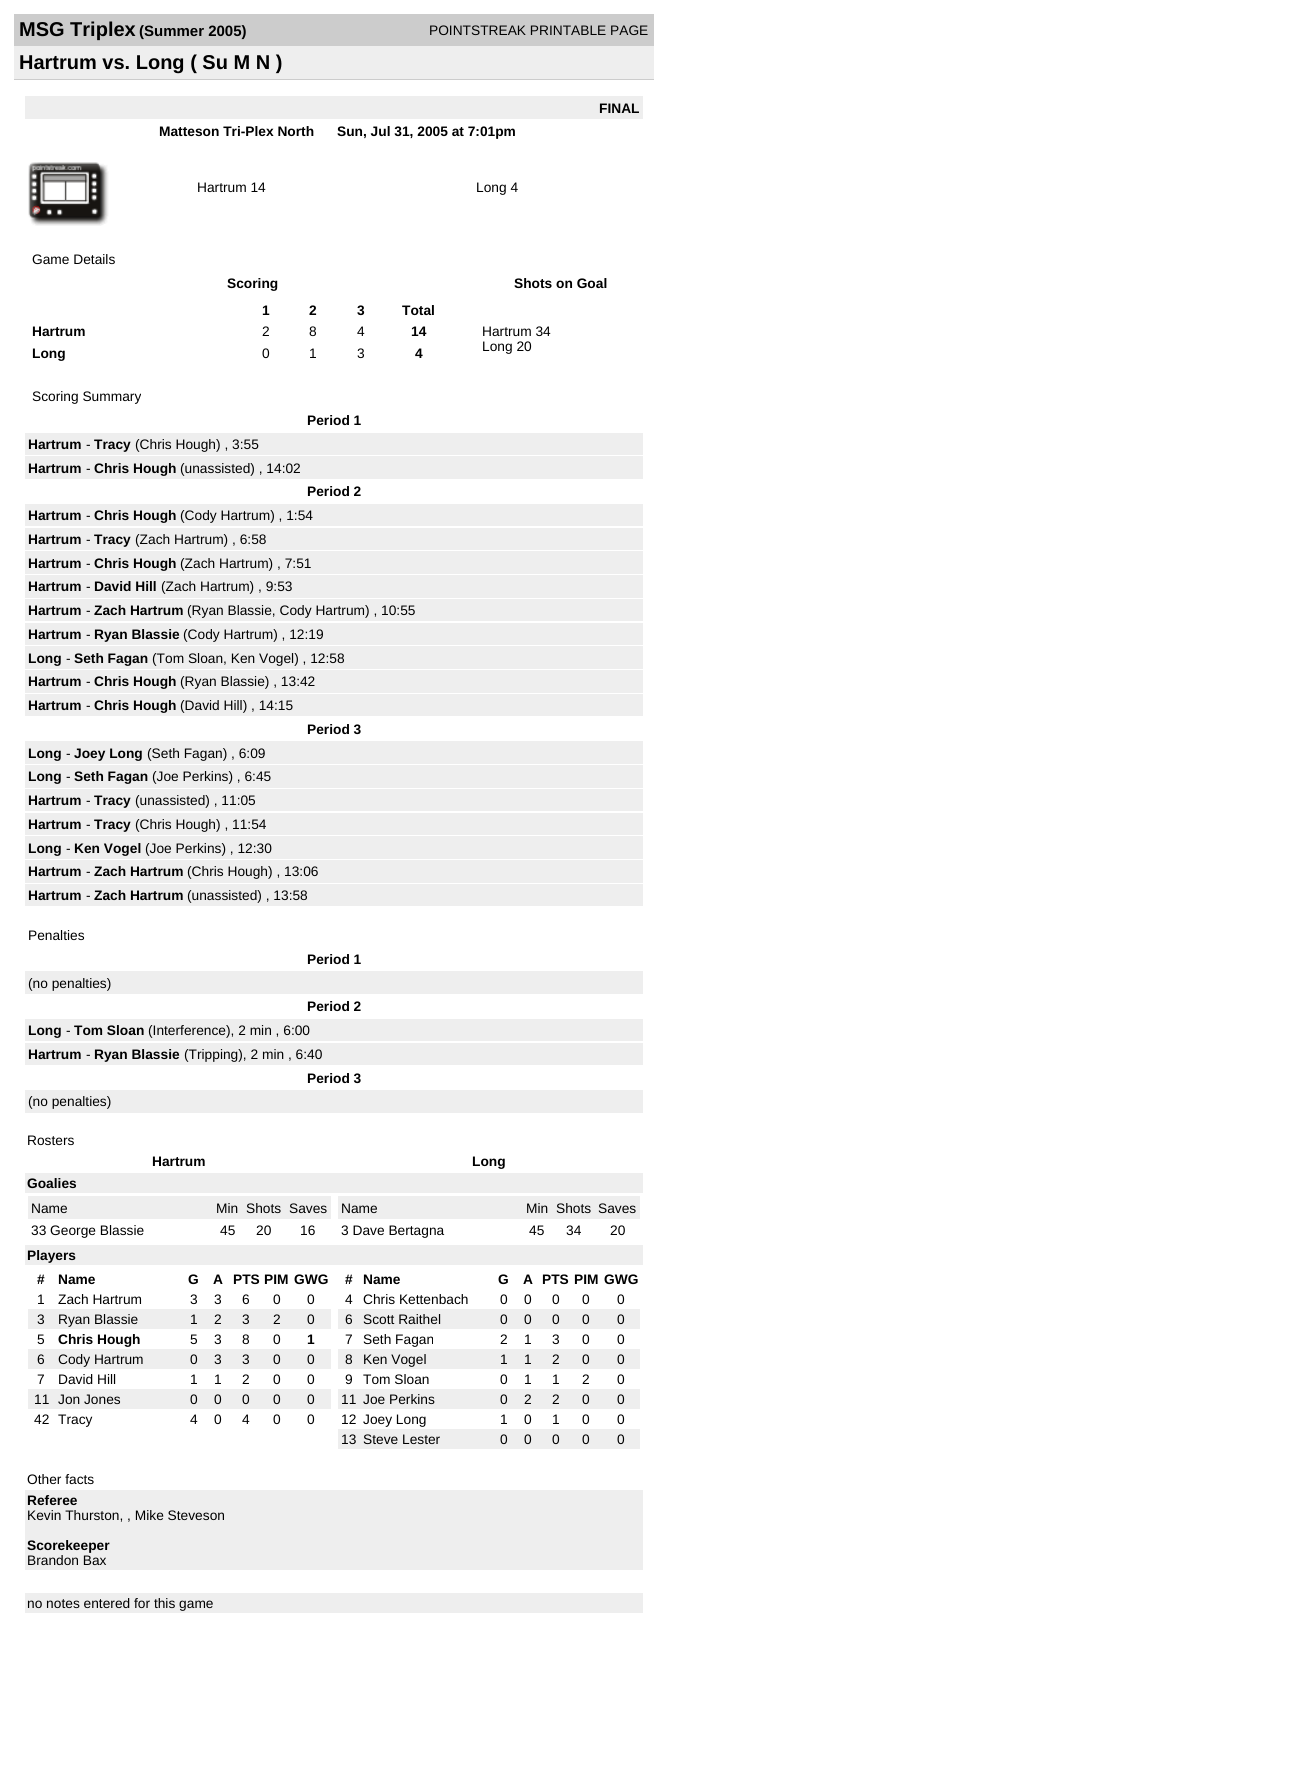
import math
import cairo


def use_color(cr, r, g, b):
  cr.set_source_rgb(r / 255, g / 255, b / 255)

def text(cr, x, y, s, family, size, color, bold=False, italic=False):
  cr.select_font_face(family, cairo.FONT_SLANT_ITALIC if italic else cairo.FONT_SLANT_NORMAL, cairo.FONT_WEIGHT_BOLD if bold else cairo.FONT_WEIGHT_NORMAL)
  cr.set_font_size(size)
  use_color(cr, *color)
  cr.move_to(x, y)
  cr.show_text(s)

def box(cr, x, y, w, h, *color):
  use_color(cr, *color)
  cr.rectangle(x, y, w, h)
  cr.fill()

def picture(cr, path, x, y, w, h):
  cr.save()
  cr.set_source_surface(cairo.ImageSurface.create_from_png(path), x, y)
  cr.rectangle(x, y, w, h)
  cr.fill()
  cr.restore()

def draw(cr):
  use_color(cr, 255, 255, 255)
  cr.paint()
  box(cr, 14, 14, 640, 32, 204, 204, 204)
  box(cr, 14, 46, 640, 33, 238, 238, 238)
  box(cr, 14, 79, 640, 1, 204, 204, 204)
  box(cr, 25, 96, 618, 23, 238, 238, 238)
  picture(cr, "img_01.png", 28, 162, 81, 64)
  box(cr, 25, 433, 618, 22, 238, 238, 238)
  box(cr, 25, 456, 618, 23, 238, 238, 238)
  box(cr, 25, 504, 618, 22, 238, 238, 238)
  box(cr, 25, 528, 618, 22, 238, 238, 238)
  box(cr, 25, 551, 618, 23, 238, 238, 238)
  box(cr, 25, 575, 618, 23, 238, 238, 238)
  box(cr, 25, 599, 618, 22, 238, 238, 238)
  box(cr, 25, 623, 618, 22, 238, 238, 238)
  box(cr, 25, 646, 618, 23, 238, 238, 238)
  box(cr, 25, 670, 618, 23, 238, 238, 238)
  box(cr, 25, 694, 618, 22, 238, 238, 238)
  box(cr, 25, 741, 618, 23, 238, 238, 238)
  box(cr, 25, 765, 618, 23, 238, 238, 238)
  box(cr, 25, 789, 618, 22, 238, 238, 238)
  box(cr, 25, 813, 618, 22, 238, 238, 238)
  box(cr, 25, 836, 618, 23, 238, 238, 238)
  box(cr, 25, 860, 618, 23, 238, 238, 238)
  box(cr, 25, 884, 618, 22, 238, 238, 238)
  box(cr, 25, 971, 618, 23, 238, 238, 238)
  box(cr, 25, 1019, 618, 22, 238, 238, 238)
  box(cr, 25, 1043, 618, 22, 238, 238, 238)
  box(cr, 25, 1090, 618, 23, 238, 238, 238)
  box(cr, 25, 1173, 618, 20, 238, 238, 238)
  box(cr, 28, 1196, 303, 23, 238, 238, 238)
  box(cr, 338, 1196, 302, 23, 238, 238, 238)
  box(cr, 25, 1245, 618, 20, 238, 238, 238)
  box(cr, 28, 1309, 303, 20, 238, 238, 238)
  box(cr, 28, 1349, 303, 20, 238, 238, 238)
  box(cr, 28, 1389, 303, 20, 238, 238, 238)
  box(cr, 338, 1309, 302, 20, 238, 238, 238)
  box(cr, 338, 1349, 302, 20, 238, 238, 238)
  box(cr, 338, 1389, 302, 20, 238, 238, 238)
  box(cr, 338, 1429, 302, 20, 238, 238, 238)
  box(cr, 25, 1490, 618, 80, 238, 238, 238)
  box(cr, 25, 1593, 618, 20, 238, 238, 238)
  text(cr, 19, 36, "MSG Triplex", "Liberation Sans", 20, (0, 0, 0), bold=True)
  text(cr, 139, 36, "(Summer 2005)", "Liberation Sans", 15, (0, 0, 0), bold=True)
  text(cr, 429, 35, "POINTSTREAK PRINTABLE PAGE", "Liberation Sans", 13.75, (0, 0, 0))
  text(cr, 19, 69, "Hartrum vs. Long ( Su M N )", "Liberation Sans", 20, (0, 0, 0), bold=True)
  text(cr, 599, 113, "FINAL", "Liberation Sans", 13.75, (0, 0, 0), bold=True)
  text(cr, 159, 136, "Matteson Tri-Plex North", "Liberation Sans", 13.75, (0, 0, 0), bold=True)
  text(cr, 337, 136, "Sun, Jul 31, 2005 at 7:01pm", "Liberation Sans", 13.75, (0, 0, 0), bold=True)
  text(cr, 197, 192, "Hartrum 14", "Liberation Sans", 13.75, (0, 0, 0))
  text(cr, 476, 192, "Long 4", "Liberation Sans", 13.75, (0, 0, 0))
  text(cr, 32, 264, "Game Details", "Liberation Sans", 13.75, (0, 0, 0))
  text(cr, 227, 288, "Scoring", "Liberation Sans", 13.75, (0, 0, 0), bold=True)
  text(cr, 514, 288, "Shots on Goal", "Liberation Sans", 13.75, (0, 0, 0), bold=True)
  text(cr, 262, 315, "1", "Liberation Sans", 13.75, (0, 0, 0), bold=True)
  text(cr, 309, 315, "2", "Liberation Sans", 13.75, (0, 0, 0), bold=True)
  text(cr, 357, 315, "3", "Liberation Sans", 13.75, (0, 0, 0), bold=True)
  text(cr, 402, 315, "Total", "Liberation Sans", 13.75, (0, 0, 0), bold=True)
  text(cr, 32, 336, "Hartrum", "Liberation Sans", 13.75, (0, 0, 0), bold=True)
  text(cr, 262, 336, "2", "Liberation Sans", 13.75, (0, 0, 0))
  text(cr, 309, 336, "8", "Liberation Sans", 13.75, (0, 0, 0))
  text(cr, 357, 336, "4", "Liberation Sans", 13.75, (0, 0, 0))
  text(cr, 411, 336, "14", "Liberation Sans", 13.75, (0, 0, 0), bold=True)
  text(cr, 32, 358, "Long", "Liberation Sans", 13.75, (0, 0, 0), bold=True)
  text(cr, 262, 358, "0", "Liberation Sans", 13.75, (0, 0, 0))
  text(cr, 309, 358, "1", "Liberation Sans", 13.75, (0, 0, 0))
  text(cr, 357, 358, "3", "Liberation Sans", 13.75, (0, 0, 0))
  text(cr, 415, 358, "4", "Liberation Sans", 13.75, (0, 0, 0), bold=True)
  text(cr, 482, 336, "Hartrum 34", "Liberation Sans", 13.75, (0, 0, 0))
  text(cr, 482, 351, "Long 20", "Liberation Sans", 13.75, (0, 0, 0))
  text(cr, 32, 401, "Scoring Summary", "Liberation Sans", 13.75, (0, 0, 0))
  text(cr, 307, 425, "Period 1", "Liberation Sans", 13.75, (0, 0, 0), bold=True)
  text(cr, 28, 449, "Hartrum", "Liberation Sans", 13.75, (0, 0, 0), bold=True)
  text(cr, 86, 449, "-", "Liberation Sans", 13.75, (0, 0, 0))
  text(cr, 94, 449, "Tracy", "Liberation Sans", 13.75, (0, 0, 0), bold=True)
  text(cr, 135, 449, "(Chris Hough) , 3:55", "Liberation Sans", 13.75, (0, 0, 0))
  text(cr, 28, 473, "Hartrum", "Liberation Sans", 13.75, (0, 0, 0), bold=True)
  text(cr, 86, 473, "-", "Liberation Sans", 13.75, (0, 0, 0))
  text(cr, 94, 473, "Chris Hough", "Liberation Sans", 13.75, (0, 0, 0), bold=True)
  text(cr, 180, 473, "(unassisted) , 14:02", "Liberation Sans", 13.75, (0, 0, 0))
  text(cr, 307, 496, "Period 2", "Liberation Sans", 13.75, (0, 0, 0), bold=True)
  text(cr, 28, 520, "Hartrum", "Liberation Sans", 13.75, (0, 0, 0), bold=True)
  text(cr, 86, 520, "-", "Liberation Sans", 13.75, (0, 0, 0))
  text(cr, 94, 520, "Chris Hough", "Liberation Sans", 13.75, (0, 0, 0), bold=True)
  text(cr, 180, 520, "(Cody Hartrum) , 1:54", "Liberation Sans", 13.75, (0, 0, 0))
  text(cr, 28, 544, "Hartrum", "Liberation Sans", 13.75, (0, 0, 0), bold=True)
  text(cr, 86, 544, "-", "Liberation Sans", 13.75, (0, 0, 0))
  text(cr, 94, 544, "Tracy", "Liberation Sans", 13.75, (0, 0, 0), bold=True)
  text(cr, 135, 544, "(Zach Hartrum) , 6:58", "Liberation Sans", 13.75, (0, 0, 0))
  text(cr, 28, 568, "Hartrum", "Liberation Sans", 13.75, (0, 0, 0), bold=True)
  text(cr, 86, 568, "-", "Liberation Sans", 13.75, (0, 0, 0))
  text(cr, 94, 568, "Chris Hough", "Liberation Sans", 13.75, (0, 0, 0), bold=True)
  text(cr, 180, 568, "(Zach Hartrum) , 7:51", "Liberation Sans", 13.75, (0, 0, 0))
  text(cr, 28, 591, "Hartrum", "Liberation Sans", 13.75, (0, 0, 0), bold=True)
  text(cr, 86, 591, "-", "Liberation Sans", 13.75, (0, 0, 0))
  text(cr, 94, 591, "David Hill", "Liberation Sans", 13.75, (0, 0, 0), bold=True)
  text(cr, 161, 591, "(Zach Hartrum) , 9:53", "Liberation Sans", 13.75, (0, 0, 0))
  text(cr, 28, 615, "Hartrum", "Liberation Sans", 13.75, (0, 0, 0), bold=True)
  text(cr, 86, 615, "-", "Liberation Sans", 13.75, (0, 0, 0))
  text(cr, 94, 615, "Zach Hartrum", "Liberation Sans", 13.75, (0, 0, 0), bold=True)
  text(cr, 187, 615, "(Ryan Blassie, Cody Hartrum) , 10:55", "Liberation Sans", 13.75, (0, 0, 0))
  text(cr, 28, 639, "Hartrum", "Liberation Sans", 13.75, (0, 0, 0), bold=True)
  text(cr, 86, 639, "-", "Liberation Sans", 13.75, (0, 0, 0))
  text(cr, 94, 639, "Ryan Blassie", "Liberation Sans", 13.75, (0, 0, 0), bold=True)
  text(cr, 183, 639, "(Cody Hartrum) , 12:19", "Liberation Sans", 13.75, (0, 0, 0))
  text(cr, 28, 663, "Long", "Liberation Sans", 13.75, (0, 0, 0), bold=True)
  text(cr, 66, 663, "-", "Liberation Sans", 13.75, (0, 0, 0))
  text(cr, 74, 663, "Seth Fagan", "Liberation Sans", 13.75, (0, 0, 0), bold=True)
  text(cr, 152, 663, "(Tom Sloan, Ken Vogel) , 12:58", "Liberation Sans", 13.75, (0, 0, 0))
  text(cr, 28, 686, "Hartrum", "Liberation Sans", 13.75, (0, 0, 0), bold=True)
  text(cr, 86, 686, "-", "Liberation Sans", 13.75, (0, 0, 0))
  text(cr, 94, 686, "Chris Hough", "Liberation Sans", 13.75, (0, 0, 0), bold=True)
  text(cr, 180, 686, "(Ryan Blassie) , 13:42", "Liberation Sans", 13.75, (0, 0, 0))
  text(cr, 28, 710, "Hartrum", "Liberation Sans", 13.75, (0, 0, 0), bold=True)
  text(cr, 86, 710, "-", "Liberation Sans", 13.75, (0, 0, 0))
  text(cr, 94, 710, "Chris Hough", "Liberation Sans", 13.75, (0, 0, 0), bold=True)
  text(cr, 180, 710, "(David Hill) , 14:15", "Liberation Sans", 13.75, (0, 0, 0))
  text(cr, 307, 734, "Period 3", "Liberation Sans", 13.75, (0, 0, 0), bold=True)
  text(cr, 28, 758, "Long", "Liberation Sans", 13.75, (0, 0, 0), bold=True)
  text(cr, 66, 758, "-", "Liberation Sans", 13.75, (0, 0, 0))
  text(cr, 74, 758, "Joey Long", "Liberation Sans", 13.75, (0, 0, 0), bold=True)
  text(cr, 147, 758, "(Seth Fagan) , 6:09", "Liberation Sans", 13.75, (0, 0, 0))
  text(cr, 28, 781, "Long", "Liberation Sans", 13.75, (0, 0, 0), bold=True)
  text(cr, 66, 781, "-", "Liberation Sans", 13.75, (0, 0, 0))
  text(cr, 74, 781, "Seth Fagan", "Liberation Sans", 13.75, (0, 0, 0), bold=True)
  text(cr, 152, 781, "(Joe Perkins) , 6:45", "Liberation Sans", 13.75, (0, 0, 0))
  text(cr, 28, 805, "Hartrum", "Liberation Sans", 13.75, (0, 0, 0), bold=True)
  text(cr, 86, 805, "-", "Liberation Sans", 13.75, (0, 0, 0))
  text(cr, 94, 805, "Tracy", "Liberation Sans", 13.75, (0, 0, 0), bold=True)
  text(cr, 135, 805, "(unassisted) , 11:05", "Liberation Sans", 13.75, (0, 0, 0))
  text(cr, 28, 829, "Hartrum", "Liberation Sans", 13.75, (0, 0, 0), bold=True)
  text(cr, 86, 829, "-", "Liberation Sans", 13.75, (0, 0, 0))
  text(cr, 94, 829, "Tracy", "Liberation Sans", 13.75, (0, 0, 0), bold=True)
  text(cr, 135, 829, "(Chris Hough) , 11:54", "Liberation Sans", 13.75, (0, 0, 0))
  text(cr, 28, 853, "Long", "Liberation Sans", 13.75, (0, 0, 0), bold=True)
  text(cr, 66, 853, "-", "Liberation Sans", 13.75, (0, 0, 0))
  text(cr, 74, 853, "Ken Vogel", "Liberation Sans", 13.75, (0, 0, 0), bold=True)
  text(cr, 145, 853, "(Joe Perkins) , 12:30", "Liberation Sans", 13.75, (0, 0, 0))
  text(cr, 28, 876, "Hartrum", "Liberation Sans", 13.75, (0, 0, 0), bold=True)
  text(cr, 86, 876, "-", "Liberation Sans", 13.75, (0, 0, 0))
  text(cr, 94, 876, "Zach Hartrum", "Liberation Sans", 13.75, (0, 0, 0), bold=True)
  text(cr, 187, 876, "(Chris Hough) , 13:06", "Liberation Sans", 13.75, (0, 0, 0))
  text(cr, 28, 900, "Hartrum", "Liberation Sans", 13.75, (0, 0, 0), bold=True)
  text(cr, 86, 900, "-", "Liberation Sans", 13.75, (0, 0, 0))
  text(cr, 94, 900, "Zach Hartrum", "Liberation Sans", 13.75, (0, 0, 0), bold=True)
  text(cr, 187, 900, "(unassisted) , 13:58", "Liberation Sans", 13.75, (0, 0, 0))
  text(cr, 28, 940, "Penalties", "Liberation Sans", 13.75, (0, 0, 0))
  text(cr, 307, 964, "Period 1", "Liberation Sans", 13.75, (0, 0, 0), bold=True)
  text(cr, 28, 988, "(no penalties)", "Liberation Sans", 13.75, (0, 0, 0))
  text(cr, 307, 1011, "Period 2", "Liberation Sans", 13.75, (0, 0, 0), bold=True)
  text(cr, 28, 1035, "Long", "Liberation Sans", 13.75, (0, 0, 0), bold=True)
  text(cr, 66, 1035, "-", "Liberation Sans", 13.75, (0, 0, 0))
  text(cr, 74, 1035, "Tom Sloan", "Liberation Sans", 13.75, (0, 0, 0), bold=True)
  text(cr, 148, 1035, "(Interference), 2 min , 6:00", "Liberation Sans", 13.75, (0, 0, 0))
  text(cr, 28, 1059, "Hartrum", "Liberation Sans", 13.75, (0, 0, 0), bold=True)
  text(cr, 86, 1059, "-", "Liberation Sans", 13.75, (0, 0, 0))
  text(cr, 94, 1059, "Ryan Blassie", "Liberation Sans", 13.75, (0, 0, 0), bold=True)
  text(cr, 184, 1059, "(Tripping), 2 min , 6:40", "Liberation Sans", 13.75, (0, 0, 0))
  text(cr, 307, 1083, "Period 3", "Liberation Sans", 13.75, (0, 0, 0), bold=True)
  text(cr, 28, 1106, "(no penalties)", "Liberation Sans", 13.75, (0, 0, 0))
  text(cr, 27, 1145, "Rosters", "Liberation Sans", 13.75, (0, 0, 0))
  text(cr, 152, 1166, "Hartrum", "Liberation Sans", 13.75, (0, 0, 0), bold=True)
  text(cr, 472, 1166, "Long", "Liberation Sans", 13.75, (0, 0, 0), bold=True)
  text(cr, 27, 1188, "Goalies", "Liberation Sans", 13.75, (0, 0, 0), bold=True)
  text(cr, 31, 1213, "Name", "Liberation Sans", 13.75, (0, 0, 0))
  text(cr, 216, 1213, "Min", "Liberation Sans", 13.75, (0, 0, 0))
  text(cr, 246, 1213, "Shots", "Liberation Sans", 13.75, (0, 0, 0))
  text(cr, 289, 1213, "Saves", "Liberation Sans", 13.75, (0, 0, 0))
  text(cr, 31, 1235, "33 George Blassie", "Liberation Sans", 13.75, (0, 0, 0))
  text(cr, 220, 1235, "45", "Liberation Sans", 13.75, (0, 0, 0))
  text(cr, 256, 1235, "20", "Liberation Sans", 13.75, (0, 0, 0))
  text(cr, 300, 1235, "16", "Liberation Sans", 13.75, (0, 0, 0))
  text(cr, 341, 1213, "Name", "Liberation Sans", 13.75, (0, 0, 0))
  text(cr, 526, 1213, "Min", "Liberation Sans", 13.75, (0, 0, 0))
  text(cr, 556, 1213, "Shots", "Liberation Sans", 13.75, (0, 0, 0))
  text(cr, 598, 1213, "Saves", "Liberation Sans", 13.75, (0, 0, 0))
  text(cr, 341, 1235, "3 Dave Bertagna", "Liberation Sans", 13.75, (0, 0, 0))
  text(cr, 529, 1235, "45", "Liberation Sans", 13.75, (0, 0, 0))
  text(cr, 566, 1235, "34", "Liberation Sans", 13.75, (0, 0, 0))
  text(cr, 610, 1235, "20", "Liberation Sans", 13.75, (0, 0, 0))
  text(cr, 27, 1260, "Players", "Liberation Sans", 13.75, (0, 0, 0), bold=True)
  text(cr, 37, 1284, "#", "Liberation Sans", 13.75, (0, 0, 0), bold=True)
  text(cr, 58, 1284, "Name", "Liberation Sans", 13.75, (0, 0, 0), bold=True)
  text(cr, 188, 1284, "G", "Liberation Sans", 13.75, (0, 0, 0), bold=True)
  text(cr, 213, 1284, "A", "Liberation Sans", 13.75, (0, 0, 0), bold=True)
  text(cr, 233, 1284, "PTS", "Liberation Sans", 13.75, (0, 0, 0), bold=True)
  text(cr, 264, 1284, "PIM", "Liberation Sans", 13.75, (0, 0, 0), bold=True)
  text(cr, 294, 1284, "GWG", "Liberation Sans", 13.75, (0, 0, 0), bold=True)
  text(cr, 37, 1304, "1", "Liberation Sans", 13.75, (0, 0, 0))
  text(cr, 58, 1304, "Zach Hartrum", "Liberation Sans", 13.75, (0, 0, 0))
  text(cr, 190, 1304, "3", "Liberation Sans", 13.75, (0, 0, 0))
  text(cr, 214, 1304, "3", "Liberation Sans", 13.75, (0, 0, 0))
  text(cr, 242, 1304, "6", "Liberation Sans", 13.75, (0, 0, 0))
  text(cr, 273, 1304, "0", "Liberation Sans", 13.75, (0, 0, 0))
  text(cr, 307, 1304, "0", "Liberation Sans", 13.75, (0, 0, 0))
  text(cr, 37, 1324, "3", "Liberation Sans", 13.75, (0, 0, 0))
  text(cr, 58, 1324, "Ryan Blassie", "Liberation Sans", 13.75, (0, 0, 0))
  text(cr, 190, 1324, "1", "Liberation Sans", 13.75, (0, 0, 0))
  text(cr, 214, 1324, "2", "Liberation Sans", 13.75, (0, 0, 0))
  text(cr, 242, 1324, "3", "Liberation Sans", 13.75, (0, 0, 0))
  text(cr, 273, 1324, "2", "Liberation Sans", 13.75, (0, 0, 0))
  text(cr, 307, 1324, "0", "Liberation Sans", 13.75, (0, 0, 0))
  text(cr, 37, 1344, "5", "Liberation Sans", 13.75, (0, 0, 0))
  text(cr, 58, 1344, "Chris Hough", "Liberation Sans", 13.75, (0, 0, 0), bold=True)
  text(cr, 190, 1344, "5", "Liberation Sans", 13.75, (0, 0, 0))
  text(cr, 214, 1344, "3", "Liberation Sans", 13.75, (0, 0, 0))
  text(cr, 242, 1344, "8", "Liberation Sans", 13.75, (0, 0, 0))
  text(cr, 273, 1344, "0", "Liberation Sans", 13.75, (0, 0, 0))
  text(cr, 307, 1344, "1", "Liberation Sans", 13.75, (0, 0, 0), bold=True)
  text(cr, 37, 1364, "6", "Liberation Sans", 13.75, (0, 0, 0))
  text(cr, 58, 1364, "Cody Hartrum", "Liberation Sans", 13.75, (0, 0, 0))
  text(cr, 190, 1364, "0", "Liberation Sans", 13.75, (0, 0, 0))
  text(cr, 214, 1364, "3", "Liberation Sans", 13.75, (0, 0, 0))
  text(cr, 242, 1364, "3", "Liberation Sans", 13.75, (0, 0, 0))
  text(cr, 273, 1364, "0", "Liberation Sans", 13.75, (0, 0, 0))
  text(cr, 307, 1364, "0", "Liberation Sans", 13.75, (0, 0, 0))
  text(cr, 37, 1384, "7", "Liberation Sans", 13.75, (0, 0, 0))
  text(cr, 58, 1384, "David Hill", "Liberation Sans", 13.75, (0, 0, 0))
  text(cr, 190, 1384, "1", "Liberation Sans", 13.75, (0, 0, 0))
  text(cr, 214, 1384, "1", "Liberation Sans", 13.75, (0, 0, 0))
  text(cr, 242, 1384, "2", "Liberation Sans", 13.75, (0, 0, 0))
  text(cr, 273, 1384, "0", "Liberation Sans", 13.75, (0, 0, 0))
  text(cr, 307, 1384, "0", "Liberation Sans", 13.75, (0, 0, 0))
  text(cr, 34, 1404, "11", "Liberation Sans", 13.75, (0, 0, 0))
  text(cr, 58, 1404, "Jon Jones", "Liberation Sans", 13.75, (0, 0, 0))
  text(cr, 190, 1404, "0", "Liberation Sans", 13.75, (0, 0, 0))
  text(cr, 214, 1404, "0", "Liberation Sans", 13.75, (0, 0, 0))
  text(cr, 242, 1404, "0", "Liberation Sans", 13.75, (0, 0, 0))
  text(cr, 273, 1404, "0", "Liberation Sans", 13.75, (0, 0, 0))
  text(cr, 307, 1404, "0", "Liberation Sans", 13.75, (0, 0, 0))
  text(cr, 34, 1424, "42", "Liberation Sans", 13.75, (0, 0, 0))
  text(cr, 58, 1424, "Tracy", "Liberation Sans", 13.75, (0, 0, 0))
  text(cr, 190, 1424, "4", "Liberation Sans", 13.75, (0, 0, 0))
  text(cr, 214, 1424, "0", "Liberation Sans", 13.75, (0, 0, 0))
  text(cr, 242, 1424, "4", "Liberation Sans", 13.75, (0, 0, 0))
  text(cr, 273, 1424, "0", "Liberation Sans", 13.75, (0, 0, 0))
  text(cr, 307, 1424, "0", "Liberation Sans", 13.75, (0, 0, 0))
  text(cr, 345, 1284, "#", "Liberation Sans", 13.75, (0, 0, 0), bold=True)
  text(cr, 363, 1284, "Name", "Liberation Sans", 13.75, (0, 0, 0), bold=True)
  text(cr, 498, 1284, "G", "Liberation Sans", 13.75, (0, 0, 0), bold=True)
  text(cr, 523, 1284, "A", "Liberation Sans", 13.75, (0, 0, 0), bold=True)
  text(cr, 542, 1284, "PTS", "Liberation Sans", 13.75, (0, 0, 0), bold=True)
  text(cr, 574, 1284, "PIM", "Liberation Sans", 13.75, (0, 0, 0), bold=True)
  text(cr, 604, 1284, "GWG", "Liberation Sans", 13.75, (0, 0, 0), bold=True)
  text(cr, 345, 1304, "4", "Liberation Sans", 13.75, (0, 0, 0))
  text(cr, 363, 1304, "Chris Kettenbach", "Liberation Sans", 13.75, (0, 0, 0))
  text(cr, 500, 1304, "0", "Liberation Sans", 13.75, (0, 0, 0))
  text(cr, 524, 1304, "0", "Liberation Sans", 13.75, (0, 0, 0))
  text(cr, 552, 1304, "0", "Liberation Sans", 13.75, (0, 0, 0))
  text(cr, 582, 1304, "0", "Liberation Sans", 13.75, (0, 0, 0))
  text(cr, 617, 1304, "0", "Liberation Sans", 13.75, (0, 0, 0))
  text(cr, 345, 1324, "6", "Liberation Sans", 13.75, (0, 0, 0))
  text(cr, 363, 1324, "Scott Raithel", "Liberation Sans", 13.75, (0, 0, 0))
  text(cr, 500, 1324, "0", "Liberation Sans", 13.75, (0, 0, 0))
  text(cr, 524, 1324, "0", "Liberation Sans", 13.75, (0, 0, 0))
  text(cr, 552, 1324, "0", "Liberation Sans", 13.75, (0, 0, 0))
  text(cr, 582, 1324, "0", "Liberation Sans", 13.75, (0, 0, 0))
  text(cr, 617, 1324, "0", "Liberation Sans", 13.75, (0, 0, 0))
  text(cr, 345, 1344, "7", "Liberation Sans", 13.75, (0, 0, 0))
  text(cr, 363, 1344, "Seth Fagan", "Liberation Sans", 13.75, (0, 0, 0))
  text(cr, 500, 1344, "2", "Liberation Sans", 13.75, (0, 0, 0))
  text(cr, 524, 1344, "1", "Liberation Sans", 13.75, (0, 0, 0))
  text(cr, 552, 1344, "3", "Liberation Sans", 13.75, (0, 0, 0))
  text(cr, 582, 1344, "0", "Liberation Sans", 13.75, (0, 0, 0))
  text(cr, 617, 1344, "0", "Liberation Sans", 13.75, (0, 0, 0))
  text(cr, 345, 1364, "8", "Liberation Sans", 13.75, (0, 0, 0))
  text(cr, 363, 1364, "Ken Vogel", "Liberation Sans", 13.75, (0, 0, 0))
  text(cr, 500, 1364, "1", "Liberation Sans", 13.75, (0, 0, 0))
  text(cr, 524, 1364, "1", "Liberation Sans", 13.75, (0, 0, 0))
  text(cr, 552, 1364, "2", "Liberation Sans", 13.75, (0, 0, 0))
  text(cr, 582, 1364, "0", "Liberation Sans", 13.75, (0, 0, 0))
  text(cr, 617, 1364, "0", "Liberation Sans", 13.75, (0, 0, 0))
  text(cr, 345, 1384, "9", "Liberation Sans", 13.75, (0, 0, 0))
  text(cr, 363, 1384, "Tom Sloan", "Liberation Sans", 13.75, (0, 0, 0))
  text(cr, 500, 1384, "0", "Liberation Sans", 13.75, (0, 0, 0))
  text(cr, 524, 1384, "1", "Liberation Sans", 13.75, (0, 0, 0))
  text(cr, 552, 1384, "1", "Liberation Sans", 13.75, (0, 0, 0))
  text(cr, 582, 1384, "2", "Liberation Sans", 13.75, (0, 0, 0))
  text(cr, 617, 1384, "0", "Liberation Sans", 13.75, (0, 0, 0))
  text(cr, 341, 1404, "11", "Liberation Sans", 13.75, (0, 0, 0))
  text(cr, 363, 1404, "Joe Perkins", "Liberation Sans", 13.75, (0, 0, 0))
  text(cr, 500, 1404, "0", "Liberation Sans", 13.75, (0, 0, 0))
  text(cr, 524, 1404, "2", "Liberation Sans", 13.75, (0, 0, 0))
  text(cr, 552, 1404, "2", "Liberation Sans", 13.75, (0, 0, 0))
  text(cr, 582, 1404, "0", "Liberation Sans", 13.75, (0, 0, 0))
  text(cr, 617, 1404, "0", "Liberation Sans", 13.75, (0, 0, 0))
  text(cr, 341, 1424, "12", "Liberation Sans", 13.75, (0, 0, 0))
  text(cr, 363, 1424, "Joey Long", "Liberation Sans", 13.75, (0, 0, 0))
  text(cr, 500, 1424, "1", "Liberation Sans", 13.75, (0, 0, 0))
  text(cr, 524, 1424, "0", "Liberation Sans", 13.75, (0, 0, 0))
  text(cr, 552, 1424, "1", "Liberation Sans", 13.75, (0, 0, 0))
  text(cr, 582, 1424, "0", "Liberation Sans", 13.75, (0, 0, 0))
  text(cr, 617, 1424, "0", "Liberation Sans", 13.75, (0, 0, 0))
  text(cr, 341, 1444, "13", "Liberation Sans", 13.75, (0, 0, 0))
  text(cr, 363, 1444, "Steve Lester", "Liberation Sans", 13.75, (0, 0, 0))
  text(cr, 500, 1444, "0", "Liberation Sans", 13.75, (0, 0, 0))
  text(cr, 524, 1444, "0", "Liberation Sans", 13.75, (0, 0, 0))
  text(cr, 552, 1444, "0", "Liberation Sans", 13.75, (0, 0, 0))
  text(cr, 582, 1444, "0", "Liberation Sans", 13.75, (0, 0, 0))
  text(cr, 617, 1444, "0", "Liberation Sans", 13.75, (0, 0, 0))
  text(cr, 27, 1484, "Other facts", "Liberation Sans", 13.75, (0, 0, 0))
  text(cr, 27, 1505, "Referee", "Liberation Sans", 13.75, (0, 0, 0), bold=True)
  text(cr, 27, 1520, "Kevin Thurston, , Mike Steveson", "Liberation Sans", 13.75, (0, 0, 0))
  text(cr, 27, 1550, "Scorekeeper", "Liberation Sans", 13.75, (0, 0, 0), bold=True)
  text(cr, 27, 1565, "Brandon Bax", "Liberation Sans", 13.75, (0, 0, 0))
  text(cr, 27, 1608, "no notes entered for this game", "Liberation Sans", 13.75, (0, 0, 0))


surface = cairo.ImageSurface(cairo.FORMAT_RGB24, 1301, 1780)
cr = cairo.Context(surface)
options = cairo.FontOptions()
options.set_hint_metrics(cairo.HINT_METRICS_OFF)
options.set_hint_style(cairo.HINT_STYLE_NONE)
cr.set_font_options(options)
cr.set_miter_limit(4)
draw(cr)
surface.write_to_png("out.png")
